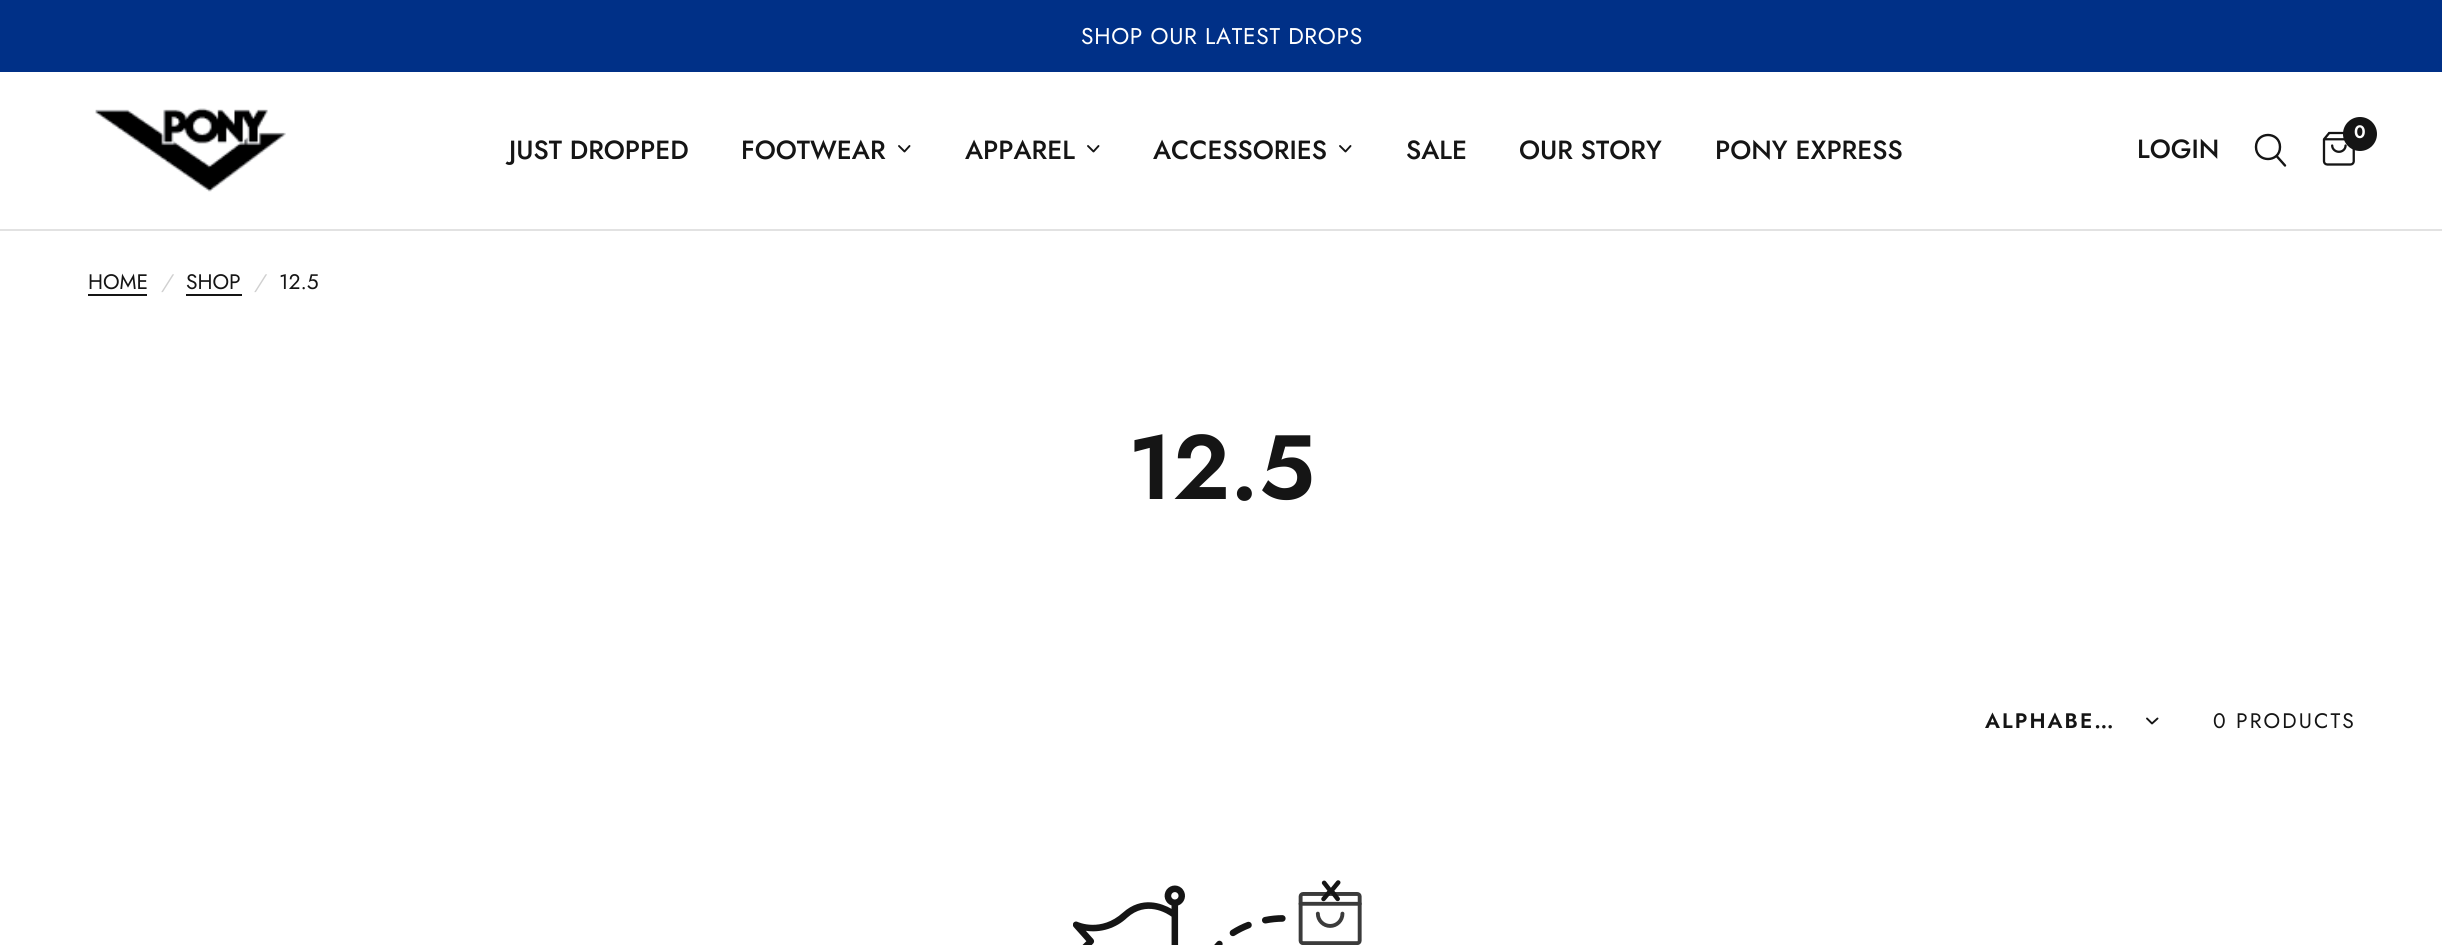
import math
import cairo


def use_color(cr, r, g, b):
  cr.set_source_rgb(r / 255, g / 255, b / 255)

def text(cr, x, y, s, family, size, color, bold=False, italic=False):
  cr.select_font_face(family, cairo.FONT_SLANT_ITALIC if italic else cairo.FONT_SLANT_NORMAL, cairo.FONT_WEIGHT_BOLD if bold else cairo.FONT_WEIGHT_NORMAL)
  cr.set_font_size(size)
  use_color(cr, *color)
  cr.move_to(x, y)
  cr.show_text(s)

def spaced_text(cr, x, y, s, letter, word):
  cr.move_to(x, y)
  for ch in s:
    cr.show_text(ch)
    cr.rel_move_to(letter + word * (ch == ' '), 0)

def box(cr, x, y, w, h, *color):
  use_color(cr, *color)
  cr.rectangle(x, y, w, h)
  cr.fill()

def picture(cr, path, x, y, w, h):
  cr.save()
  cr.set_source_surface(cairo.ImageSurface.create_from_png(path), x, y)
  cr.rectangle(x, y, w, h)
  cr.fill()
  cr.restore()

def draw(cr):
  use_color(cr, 255, 255, 255)
  cr.paint()
  box(cr, 0, 0, 2442, 72, 0, 48, 135)
  box(cr, 0, 229, 2442, 2, 226, 226, 226)
  picture(cr, "img_01.png", 95, 108, 191, 84)
  cr.new_path()
  cr.move_to(909.5, 146)
  cr.line_to(904.5, 151.5)
  cr.line_to(899, 146)
  use_color(cr, 21, 21, 21)
  cr.set_line_width(1.9)
  cr.set_line_cap(cairo.LINE_CAP_ROUND)
  cr.set_line_join(cairo.LINE_JOIN_ROUND)
  cr.stroke()
  cr.new_path()
  cr.move_to(1098.5, 146)
  cr.line_to(1093.5, 151.5)
  cr.line_to(1088, 146)
  cr.stroke()
  cr.new_path()
  cr.move_to(1350.5, 146)
  cr.line_to(1345.5, 151.5)
  cr.line_to(1340, 146)
  cr.stroke()
  cr.new_path()
  cr.move_to(2277, 156.5)
  cr.line_to(2285, 165.5)
  cr.move_to(2280, 147)
  cr.curve_to(2280, 163, 2256, 163, 2256, 147)
  cr.curve_to(2256, 131, 2280, 131, 2280, 147)
  cr.close_path()
  cr.set_line_width(2.4)
  cr.stroke()
  picture(cr, "img_02.png", 2322, 131, 33, 35)
  cr.arc(2360, 134, 17, 0, 2 * math.pi)
  cr.fill()
  box(cr, 88, 294, 59, 2, 21, 21, 21)
  box(cr, 186, 294, 56, 2, 21, 21, 21)
  cr.new_path()
  cr.move_to(2157.5, 718.5)
  cr.line_to(2152, 723.5)
  cr.line_to(2147, 718.5)
  cr.set_line_width(1.9)
  cr.stroke()
  picture(cr, "img_03.png", 1073, 880, 289, 65)
  cr.select_font_face("Jost")
  cr.set_font_size(22.75)
  use_color(cr, 255, 255, 255)
  spaced_text(cr, 1081, 44, "SHOP OUR LATEST DROPS", 0.7, 0)
  text(cr, 509, 159, "JUST DROPPED", "Jost Medium", 26.25, (21, 21, 21))
  text(cr, 741, 159, "FOOTWEAR", "Jost Medium", 26.25, (21, 21, 21))
  text(cr, 965, 159, "APPAREL", "Jost Medium", 26.25, (21, 21, 21))
  text(cr, 1153, 159, "ACCESSORIES", "Jost Medium", 26.25, (21, 21, 21))
  text(cr, 1406, 159, "SALE", "Jost Medium", 26.25, (21, 21, 21))
  text(cr, 1519, 159, "OUR STORY", "Jost Medium", 26.25, (21, 21, 21))
  text(cr, 1715, 159, "PONY EXPRESS", "Jost Medium", 26.25, (21, 21, 21))
  text(cr, 2137, 158, "LOGIN", "Jost Medium", 26.25, (21, 21, 21))
  text(cr, 2354, 138, "0", "Jost SemiBold", 18, (255, 255, 255))
  text(cr, 88, 289, "HOME", "Jost", 21, (21, 21, 21))
  text(cr, 162, 289, "/", "Jost", 21, (208, 208, 208), italic=True)
  text(cr, 186, 289, "SHOP", "Jost", 21, (21, 21, 21))
  text(cr, 255, 289, "/", "Jost", 21, (208, 208, 208), italic=True)
  text(cr, 279, 289, "12.5", "Jost", 21, (21, 21, 21))
  text(cr, 1128, 499, "12.5", "Jost SemiBold", 91, (21, 21, 21))
  cr.set_font_size(21)
  spaced_text(cr, 1985, 728, "ALPHABE…", 2.1, 0)
  cr.select_font_face("Jost")
  spaced_text(cr, 2213, 728, "0 PRODUCTS", 2.1, 0)


surface = cairo.ImageSurface(cairo.FORMAT_RGB24, 2442, 945)
cr = cairo.Context(surface)
options = cairo.FontOptions()
options.set_hint_metrics(cairo.HINT_METRICS_OFF)
options.set_hint_style(cairo.HINT_STYLE_NONE)
cr.set_font_options(options)
cr.set_miter_limit(4)
draw(cr)
surface.write_to_png("out.png")
